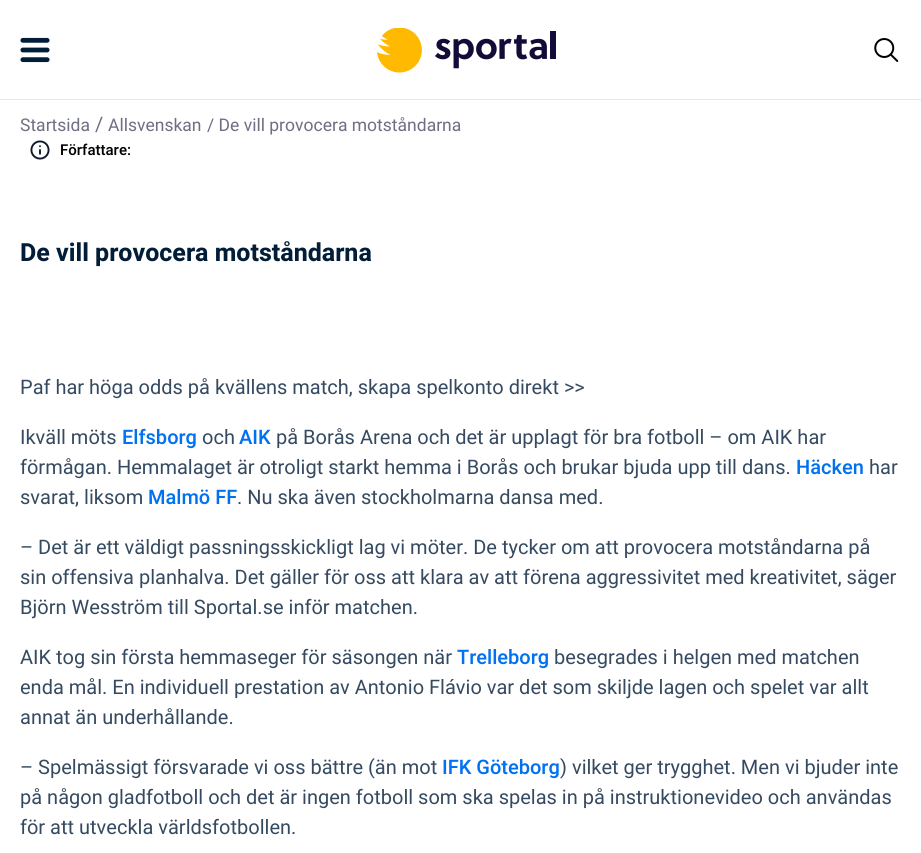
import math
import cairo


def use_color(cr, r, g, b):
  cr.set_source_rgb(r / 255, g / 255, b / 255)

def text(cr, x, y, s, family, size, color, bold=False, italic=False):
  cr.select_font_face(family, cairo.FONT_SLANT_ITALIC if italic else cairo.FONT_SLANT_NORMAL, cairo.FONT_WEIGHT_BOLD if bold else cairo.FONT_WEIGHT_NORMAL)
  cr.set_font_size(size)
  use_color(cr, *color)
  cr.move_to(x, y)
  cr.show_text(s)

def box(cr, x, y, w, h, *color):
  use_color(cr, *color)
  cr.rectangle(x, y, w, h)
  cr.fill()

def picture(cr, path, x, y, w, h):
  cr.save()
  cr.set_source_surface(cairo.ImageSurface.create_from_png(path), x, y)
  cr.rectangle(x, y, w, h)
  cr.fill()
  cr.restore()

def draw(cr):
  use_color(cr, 255, 255, 255)
  cr.paint()
  box(cr, 0, 99, 921, 1, 227, 230, 239)
  picture(cr, "img_01.png", 20, 37, 30, 26)
  picture(cr, "img_02.png", 377, 28, 179, 45)
  picture(cr, "img_03.png", 874, 38, 25, 24)
  picture(cr, "img_04.png", 30, 140, 20, 20)
  text(cr, 20, 131, "Startsida", "Heebo", 17.5, (110, 110, 132))
  text(cr, 95, 131, "/", "Heebo", 20, (110, 110, 132))
  text(cr, 108, 131, "Allsvenskan", "Heebo", 17.5, (110, 110, 132))
  text(cr, 207, 131, "/ De vill provocera motståndarna", "Heebo", 17.5, (110, 110, 132))
  text(cr, 60, 155, "Författare:", "Heebo Medium", 15, (0, 0, 0))
  text(cr, 20, 261, "De vill provocera motståndarna", "Heebo", 25, (2, 29, 56), bold=True)
  text(cr, 20, 394, "Paf har höga odds på kvällens match, skapa spelkonto direkt >>", "Heebo", 20, (53, 74, 96))
  text(cr, 20, 444, "Ikväll möts", "Heebo", 20, (53, 74, 96))
  text(cr, 122, 444, "Elfsborg", "Heebo Medium", 20, (0, 113, 240))
  text(cr, 202, 444, "och", "Heebo", 20, (53, 74, 96))
  text(cr, 239, 444, "AIK", "Heebo Medium", 20, (0, 113, 240))
  text(cr, 276, 444, "på Borås Arena och det är upplagt för bra fotboll – om AIK har", "Heebo", 20, (53, 74, 96))
  text(cr, 20, 474, "förmågan. Hemmalaget är otroligt starkt hemma i Borås och brukar bjuda upp till dans.", "Heebo", 20, (53, 74, 96))
  text(cr, 796, 474, "Häcken", "Heebo Medium", 20, (0, 113, 240))
  text(cr, 869, 474, "har", "Heebo", 20, (53, 74, 96))
  text(cr, 20, 504, "svarat, liksom", "Heebo", 20, (53, 74, 96))
  text(cr, 148, 504, "Malmö FF", "Heebo Medium", 20, (0, 113, 240))
  text(cr, 237, 504, ". Nu ska även stockholmarna dansa med.", "Heebo", 20, (53, 74, 96))
  text(cr, 20, 554, "– Det är ett väldigt passningsskickligt lag vi möter. De tycker om att provocera motståndarna på", "Heebo", 20, (53, 74, 96))
  text(cr, 20, 584, "sin offensiva planhalva. Det gäller för oss att klara av att förena aggressivitet med kreativitet, säger", "Heebo", 20, (53, 74, 96))
  text(cr, 20, 614, "Björn Wesström till Sportal.se inför matchen.", "Heebo", 20, (53, 74, 96))
  text(cr, 20, 664, "AIK tog sin första hemmaseger för säsongen när", "Heebo", 20, (53, 74, 96))
  text(cr, 457, 664, "Trelleborg", "Heebo Medium", 20, (0, 113, 240))
  text(cr, 554, 664, "besegrades i helgen med matchen", "Heebo", 20, (53, 74, 96))
  text(cr, 20, 694, "enda mål. En individuell prestation av Antonio Flávio var det som skiljde lagen och spelet var allt", "Heebo", 20, (53, 74, 96))
  text(cr, 20, 724, "annat än underhållande.", "Heebo", 20, (53, 74, 96))
  text(cr, 20, 774, "– Spelmässigt försvarade vi oss bättre (än mot", "Heebo", 20, (53, 74, 96))
  text(cr, 442, 774, "IFK Göteborg", "Heebo Medium", 20, (0, 113, 240))
  text(cr, 560, 774, ") vilket ger trygghet. Men vi bjuder inte", "Heebo", 20, (53, 74, 96))
  text(cr, 20, 804, "på någon gladfotboll och det är ingen fotboll som ska spelas in på instruktionevideo och användas", "Heebo", 20, (53, 74, 96))
  text(cr, 20, 834, "för att utveckla världsfotbollen.", "Heebo", 20, (53, 74, 96))


surface = cairo.ImageSurface(cairo.FORMAT_RGB24, 921, 853)
cr = cairo.Context(surface)
options = cairo.FontOptions()
options.set_hint_metrics(cairo.HINT_METRICS_OFF)
options.set_hint_style(cairo.HINT_STYLE_NONE)
cr.set_font_options(options)
cr.set_miter_limit(4)
draw(cr)
surface.write_to_png("out.png")
